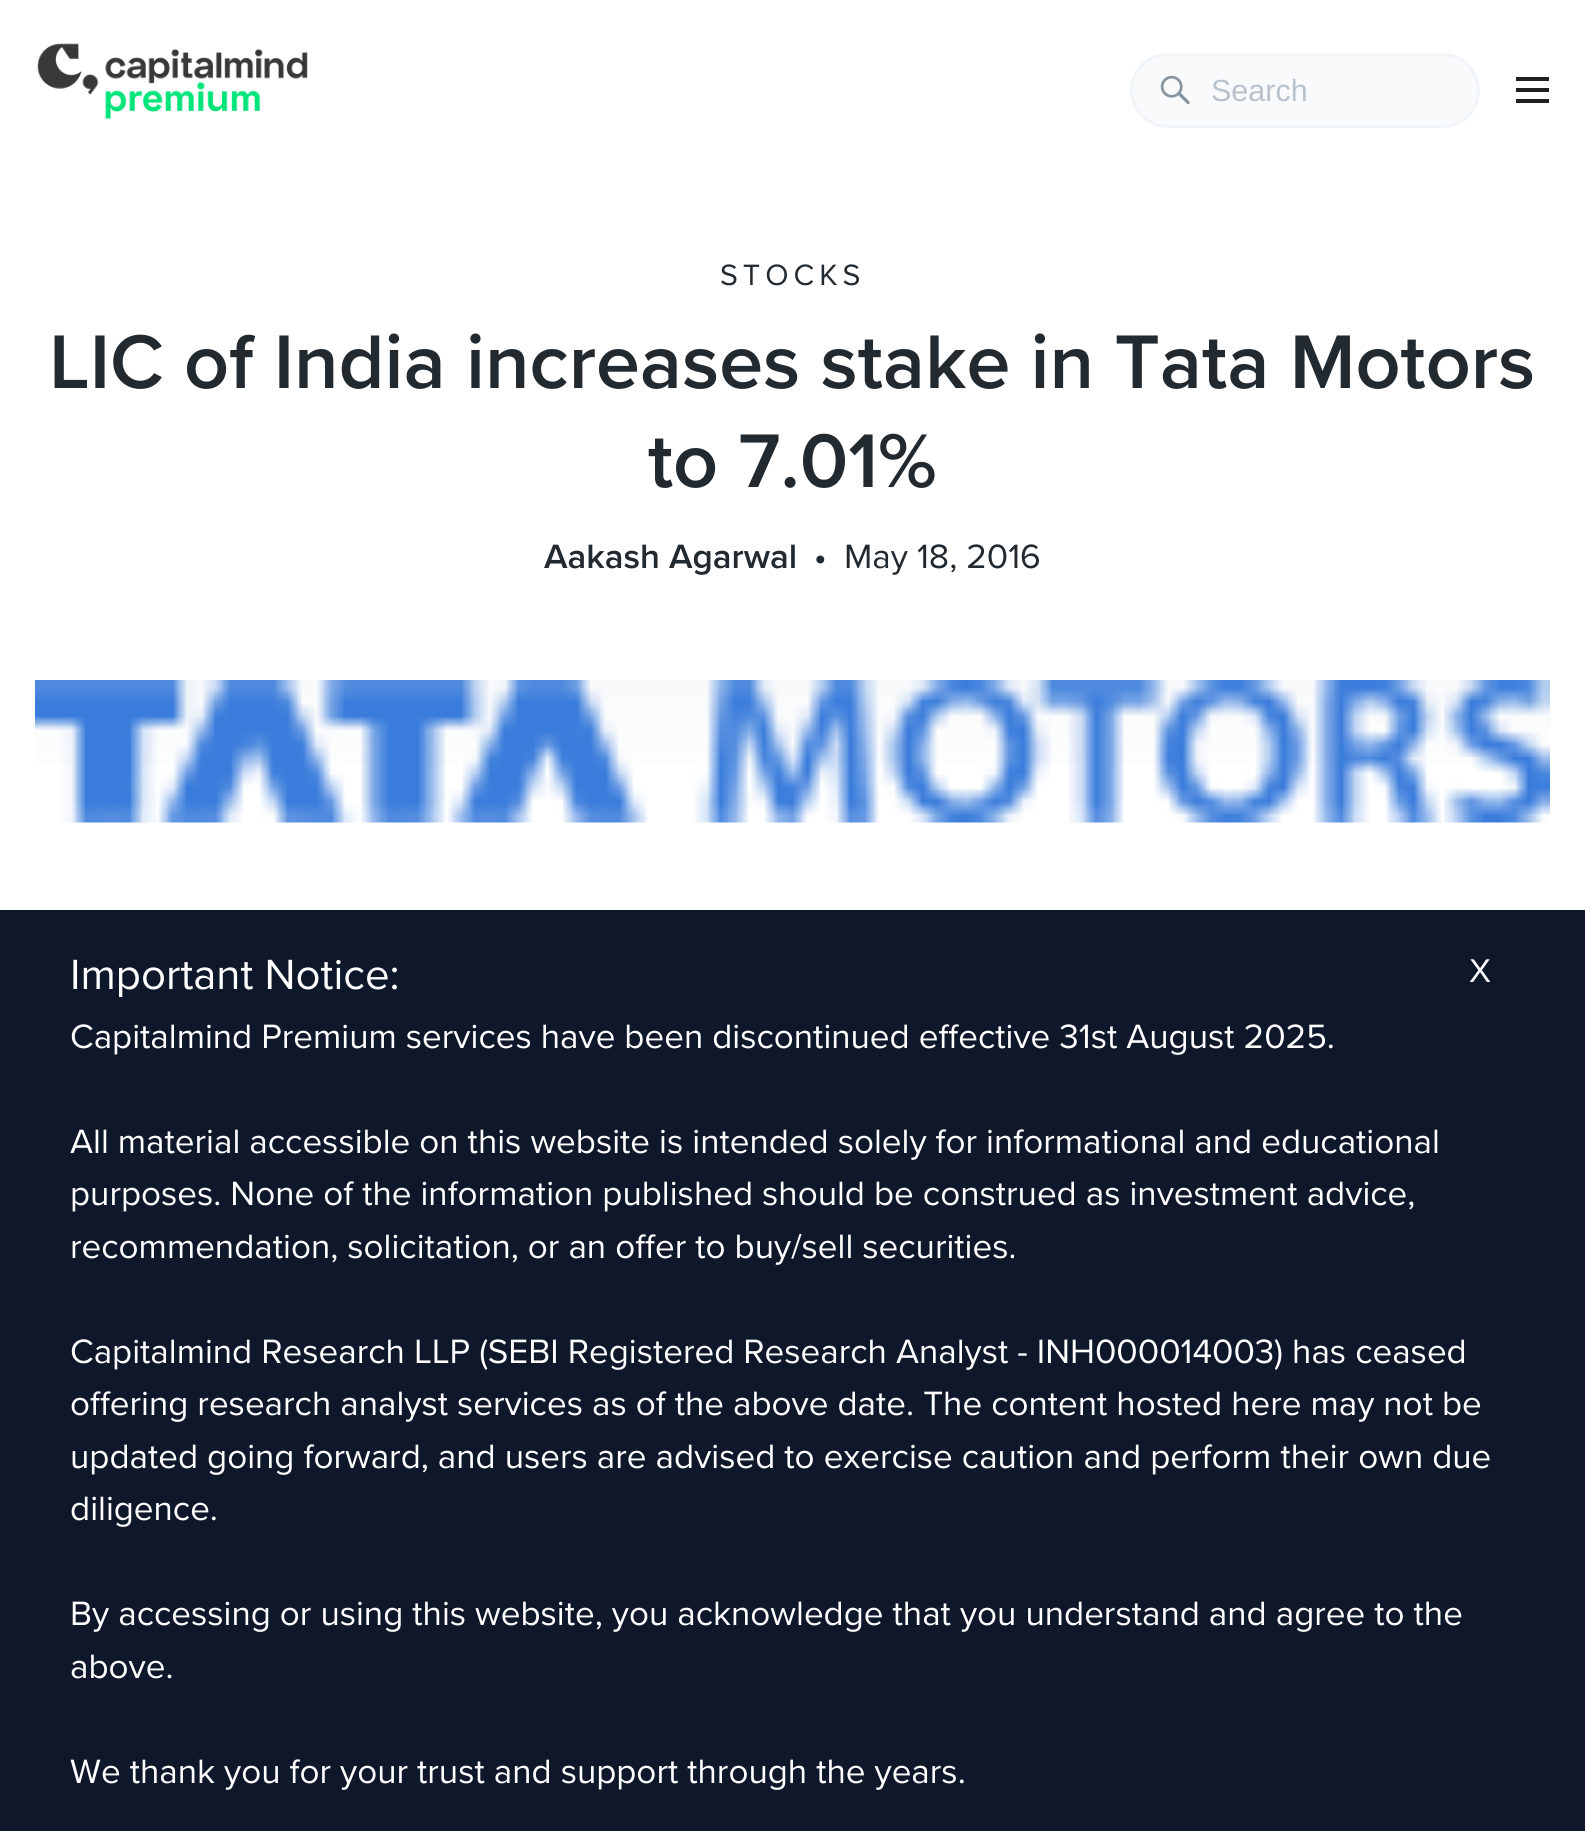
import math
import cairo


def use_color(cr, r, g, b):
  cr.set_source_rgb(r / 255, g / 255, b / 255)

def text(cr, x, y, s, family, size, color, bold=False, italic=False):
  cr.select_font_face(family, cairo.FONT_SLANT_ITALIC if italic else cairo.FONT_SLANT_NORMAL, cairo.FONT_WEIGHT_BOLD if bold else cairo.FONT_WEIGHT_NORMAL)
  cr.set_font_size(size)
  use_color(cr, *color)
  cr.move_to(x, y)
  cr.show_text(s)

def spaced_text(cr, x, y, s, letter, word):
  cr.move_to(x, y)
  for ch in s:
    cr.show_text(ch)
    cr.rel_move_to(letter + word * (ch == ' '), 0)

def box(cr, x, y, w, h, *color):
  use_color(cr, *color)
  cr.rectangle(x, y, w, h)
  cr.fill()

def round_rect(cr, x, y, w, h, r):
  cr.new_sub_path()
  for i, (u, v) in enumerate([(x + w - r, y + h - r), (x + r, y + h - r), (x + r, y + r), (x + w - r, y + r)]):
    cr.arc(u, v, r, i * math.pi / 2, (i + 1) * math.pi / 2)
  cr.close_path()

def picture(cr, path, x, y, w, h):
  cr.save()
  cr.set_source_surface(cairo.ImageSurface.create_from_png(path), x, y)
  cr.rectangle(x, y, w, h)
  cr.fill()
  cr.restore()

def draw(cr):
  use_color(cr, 255, 255, 255)
  cr.paint()
  picture(cr, "img_01.png", 37, 43, 271, 77)
  use_color(cr, 248, 250, 252)
  round_rect(cr, 1131.5, 54.5, 347, 72, 36)
  cr.fill_preserve()
  use_color(cr, 241, 245, 248)
  cr.set_line_width(3)
  cr.stroke()
  picture(cr, "img_02.png", 1160, 75, 30, 30)
  use_color(cr, 32, 32, 32)
  cr.new_path()
  cr.move_to(1516, 77)
  cr.line_to(1549, 77)
  cr.line_to(1549, 81)
  cr.line_to(1516, 81)
  cr.close_path()
  cr.move_to(1516, 88)
  cr.line_to(1549, 88)
  cr.line_to(1549, 92)
  cr.line_to(1516, 92)
  cr.close_path()
  cr.fill()
  box(cr, 1516, 99, 33, 4, 32, 32, 32)
  gradient = cairo.LinearGradient(793, 680, 793, 823)
  gradient.add_color_stop_rgba(0, 0.976, 0.98, 0.984, 1)
  gradient.add_color_stop_rgba(1, 1, 1, 1, 1)
  cr.set_source(gradient)
  cr.rectangle(35, 680, 1515, 83)
  cr.fill()
  picture(cr, "img_03.png", 35, 680, 1515, 143)
  box(cr, 0, 910, 1585, 921, 15, 23, 42)
  text(cr, 1211, 101, "Search", "Liberation Sans", 30.5, (184, 194, 204))
  cr.select_font_face("Proxima Nova")
  use_color(cr, 34, 41, 47)
  spaced_text(cr, 720, 285, "STOCKS", 5, 0)
  text(cr, 49, 388, "LIC of India increases stake in Tata Motors", "Proxima Nova SemiBold", 78.75, (34, 41, 47))
  text(cr, 648, 487, "to 7.01%", "Proxima Nova SemiBold", 78.75, (34, 41, 47))
  text(cr, 544, 568, "Aakash Agarwal", "Proxima Nova SemiBold", 35, (34, 41, 47))
  text(cr, 814, 568, "•", "Proxima Nova SemiBold", 35, (34, 41, 47))
  text(cr, 844, 568, "May 18, 2016", "Proxima Nova", 35, (34, 41, 47))
  text(cr, 70, 989, "Important Notice:", "Proxima Nova", 43.75, (255, 255, 255))
  text(cr, 70, 1048, "Capitalmind Premium services have been discontinued effective 31st August 2025.", "Proxima Nova", 35, (255, 255, 255))
  text(cr, 70, 1153, "All material accessible on this website is intended solely for informational and educational", "Proxima Nova", 35, (255, 255, 255))
  text(cr, 70, 1205, "purposes. None of the information published should be construed as investment advice,", "Proxima Nova", 35, (255, 255, 255))
  text(cr, 70, 1258, "recommendation, solicitation, or an offer to buy/sell securities.", "Proxima Nova", 35, (255, 255, 255))
  text(cr, 70, 1363, "Capitalmind Research LLP (SEBI Registered Research Analyst - INH000014003) has ceased", "Proxima Nova", 35, (255, 255, 255))
  text(cr, 70, 1415, "offering research analyst services as of the above date. The content hosted here may not be", "Proxima Nova", 35, (255, 255, 255))
  text(cr, 70, 1468, "updated going forward, and users are advised to exercise caution and perform their own due", "Proxima Nova", 35, (255, 255, 255))
  text(cr, 70, 1520, "diligence.", "Proxima Nova", 35, (255, 255, 255))
  text(cr, 70, 1625, "By accessing or using this website, you acknowledge that you understand and agree to the", "Proxima Nova", 35, (255, 255, 255))
  text(cr, 70, 1678, "above.", "Proxima Nova", 35, (255, 255, 255))
  text(cr, 70, 1783, "We thank you for your trust and support through the years.", "Proxima Nova", 35, (255, 255, 255))
  text(cr, 1469, 982, "X", "Liberation Sans", 33, (255, 255, 255))


surface = cairo.ImageSurface(cairo.FORMAT_RGB24, 1585, 1831)
cr = cairo.Context(surface)
options = cairo.FontOptions()
options.set_hint_metrics(cairo.HINT_METRICS_OFF)
options.set_hint_style(cairo.HINT_STYLE_NONE)
cr.set_font_options(options)
cr.set_miter_limit(4)
draw(cr)
surface.write_to_png("out.png")
